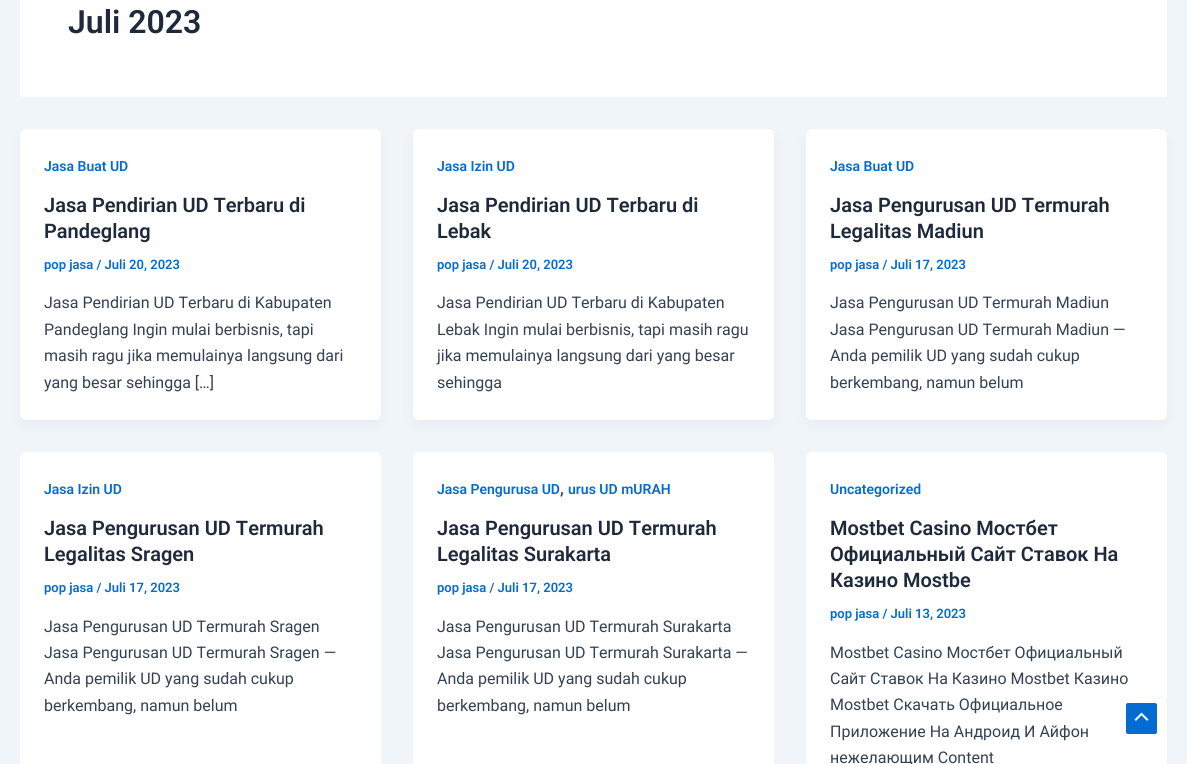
import math
import cairo


def use_color(cr, r, g, b):
  cr.set_source_rgb(r / 255, g / 255, b / 255)

def text(cr, x, y, s, family, size, color, bold=False, italic=False):
  cr.select_font_face(family, cairo.FONT_SLANT_ITALIC if italic else cairo.FONT_SLANT_NORMAL, cairo.FONT_WEIGHT_BOLD if bold else cairo.FONT_WEIGHT_NORMAL)
  cr.set_font_size(size)
  use_color(cr, *color)
  cr.move_to(x, y)
  cr.show_text(s)

def box(cr, x, y, w, h, *color):
  use_color(cr, *color)
  cr.rectangle(x, y, w, h)
  cr.fill()

def round_rect(cr, x, y, w, h, r):
  cr.new_sub_path()
  for i, (u, v) in enumerate([(x + w - r, y + h - r), (x + r, y + h - r), (x + r, y + r), (x + w - r, y + r)]):
    cr.arc(u, v, r, i * math.pi / 2, (i + 1) * math.pi / 2)
  cr.close_path()

def shadow(cr, x, y, w, h, r, blur, alpha):
  cr.push_group_with_content(cairo.CONTENT_ALPHA)
  cr.set_operator(cairo.OPERATOR_SOURCE)
  for i in range(15, -16, -2):
    e = blur * i / 6
    if min(w, h) + 2 * e > 0:
      cr.set_source_rgba(0, 0, 0, alpha * math.erfc((i - 1) / 8.5) / 2)
      round_rect(cr, x - e, y - e, w + 2 * e, h + 2 * e, max(0, min(r + e + blur * .6, min(w, h) / 2 + e)))
      cr.fill()
  cr.mask(cr.pop_group())

def picture(cr, path, x, y, w, h):
  cr.save()
  cr.set_source_surface(cairo.ImageSurface.create_from_png(path), x, y)
  cr.rectangle(x, y, w, h)
  cr.fill()
  cr.restore()

def draw(cr):
  use_color(cr, 240, 245, 250)
  cr.paint()
  box(cr, 20, 0, 1147, 97, 255, 255, 255)
  use_color(cr, 16, 24, 40)
  shadow(cr, 22, 137, 357, 287, 4, 7.5, 0.05)
  use_color(cr, 255, 255, 255)
  round_rect(cr, 20, 129, 361, 291, 6)
  cr.fill()
  use_color(cr, 16, 24, 40)
  shadow(cr, 415, 137, 357, 287, 4, 7.5, 0.05)
  use_color(cr, 255, 255, 255)
  round_rect(cr, 413, 129, 361, 291, 6)
  cr.fill()
  use_color(cr, 16, 24, 40)
  shadow(cr, 808, 137, 357, 287, 4, 7.5, 0.05)
  use_color(cr, 255, 255, 255)
  round_rect(cr, 806, 129, 361, 291, 6)
  cr.fill()
  round_rect(cr, 20, 452, 361, 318, 6)
  cr.fill()
  round_rect(cr, 413, 452, 361, 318, 6)
  cr.fill()
  round_rect(cr, 806, 452, 361, 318, 6)
  cr.fill()
  use_color(cr, 4, 107, 210)
  round_rect(cr, 1126, 703, 31, 31, 2)
  cr.fill()
  picture(cr, "img_01.png", 1134, 712, 15, 9)
  text(cr, 68, 33, "Juli 2023", "Roboto SemiBold", 32, (30, 41, 59))
  text(cr, 44, 171, "Jasa Buat UD", "Roboto SemiBold", 14, (4, 107, 210))
  text(cr, 44, 212, "Jasa Pendirian UD Terbaru di", "Roboto SemiBold", 20, (30, 41, 59))
  text(cr, 44, 238, "Pandeglang", "Roboto SemiBold", 20, (30, 41, 59))
  text(cr, 44, 269, "pop jasa / Juli 20, 2023", "Roboto SemiBold", 13, (4, 107, 210))
  text(cr, 44, 308, "Jasa Pendirian UD Terbaru di Kabupaten", "Roboto", 16, (51, 65, 85))
  text(cr, 44, 335, "Pandeglang Ingin mulai berbisnis, tapi", "Roboto", 16, (51, 65, 85))
  text(cr, 44, 361, "masih ragu jika memulainya langsung dari", "Roboto", 16, (51, 65, 85))
  text(cr, 44, 388, "yang besar sehingga […]", "Roboto", 16, (51, 65, 85))
  text(cr, 437, 171, "Jasa Izin UD", "Roboto SemiBold", 14, (4, 107, 210))
  text(cr, 437, 212, "Jasa Pendirian UD Terbaru di", "Roboto SemiBold", 20, (30, 41, 59))
  text(cr, 437, 238, "Lebak", "Roboto SemiBold", 20, (30, 41, 59))
  text(cr, 437, 269, "pop jasa / Juli 20, 2023", "Roboto SemiBold", 13, (4, 107, 210))
  text(cr, 437, 308, "Jasa Pendirian UD Terbaru di Kabupaten", "Roboto", 16, (51, 65, 85))
  text(cr, 437, 335, "Lebak Ingin mulai berbisnis, tapi masih ragu", "Roboto", 16, (51, 65, 85))
  text(cr, 437, 361, "jika memulainya langsung dari yang besar", "Roboto", 16, (51, 65, 85))
  text(cr, 437, 388, "sehingga", "Roboto", 16, (51, 65, 85))
  text(cr, 830, 171, "Jasa Buat UD", "Roboto SemiBold", 14, (4, 107, 210))
  text(cr, 830, 212, "Jasa Pengurusan UD Termurah", "Roboto SemiBold", 20, (30, 41, 59))
  text(cr, 830, 238, "Legalitas Madiun", "Roboto SemiBold", 20, (30, 41, 59))
  text(cr, 830, 269, "pop jasa / Juli 17, 2023", "Roboto SemiBold", 13, (4, 107, 210))
  text(cr, 830, 308, "Jasa Pengurusan UD Termurah Madiun", "Roboto", 16, (51, 65, 85))
  text(cr, 830, 335, "Jasa Pengurusan UD Termurah Madiun —", "Roboto", 16, (51, 65, 85))
  text(cr, 830, 361, "Anda pemilik UD yang sudah cukup", "Roboto", 16, (51, 65, 85))
  text(cr, 830, 388, "berkembang, namun belum", "Roboto", 16, (51, 65, 85))
  text(cr, 44, 494, "Jasa Izin UD", "Roboto SemiBold", 14, (4, 107, 210))
  text(cr, 44, 535, "Jasa Pengurusan UD Termurah", "Roboto SemiBold", 20, (30, 41, 59))
  text(cr, 44, 561, "Legalitas Sragen", "Roboto SemiBold", 20, (30, 41, 59))
  text(cr, 44, 592, "pop jasa / Juli 17, 2023", "Roboto SemiBold", 13, (4, 107, 210))
  text(cr, 44, 632, "Jasa Pengurusan UD Termurah Sragen", "Roboto", 16, (51, 65, 85))
  text(cr, 44, 658, "Jasa Pengurusan UD Termurah Sragen —", "Roboto", 16, (51, 65, 85))
  text(cr, 44, 684, "Anda pemilik UD yang sudah cukup", "Roboto", 16, (51, 65, 85))
  text(cr, 44, 711, "berkembang, namun belum", "Roboto", 16, (51, 65, 85))
  text(cr, 437, 494, "Jasa Pengurusa UD", "Roboto SemiBold", 14, (4, 107, 210))
  text(cr, 560, 494, ",", "Roboto SemiBold", 16, (51, 65, 85))
  text(cr, 568, 494, "urus UD mURAH", "Roboto SemiBold", 14, (4, 107, 210))
  text(cr, 437, 535, "Jasa Pengurusan UD Termurah", "Roboto SemiBold", 20, (30, 41, 59))
  text(cr, 437, 561, "Legalitas Surakarta", "Roboto SemiBold", 20, (30, 41, 59))
  text(cr, 437, 592, "pop jasa / Juli 17, 2023", "Roboto SemiBold", 13, (4, 107, 210))
  text(cr, 437, 632, "Jasa Pengurusan UD Termurah Surakarta", "Roboto", 16, (51, 65, 85))
  text(cr, 437, 658, "Jasa Pengurusan UD Termurah Surakarta —", "Roboto", 16, (51, 65, 85))
  text(cr, 437, 684, "Anda pemilik UD yang sudah cukup", "Roboto", 16, (51, 65, 85))
  text(cr, 437, 711, "berkembang, namun belum", "Roboto", 16, (51, 65, 85))
  text(cr, 830, 494, "Uncategorized", "Roboto SemiBold", 14, (4, 107, 210))
  text(cr, 830, 535, "Mostbet Casino Мостбет", "Roboto SemiBold", 20, (30, 41, 59))
  text(cr, 830, 561, "Официальный Сайт Ставок На", "Roboto SemiBold", 20, (30, 41, 59))
  text(cr, 830, 587, "Казино Mostbe", "Roboto SemiBold", 20, (30, 41, 59))
  text(cr, 830, 618, "pop jasa / Juli 13, 2023", "Roboto SemiBold", 13, (4, 107, 210))
  text(cr, 830, 658, "Mostbet Casino Мостбет Официальный", "Roboto", 16, (51, 65, 85))
  text(cr, 830, 684, "Сайт Ставок На Казино Mostbet Казино", "Roboto", 16, (51, 65, 85))
  text(cr, 830, 710, "Mostbet Скачать Официальное", "Roboto", 16, (51, 65, 85))
  text(cr, 830, 737, "Приложение На Андроид И Айфон", "Roboto", 16, (51, 65, 85))
  text(cr, 830, 763, "нежелающим Content", "Roboto", 16, (51, 65, 85))


surface = cairo.ImageSurface(cairo.FORMAT_RGB24, 1187, 764)
cr = cairo.Context(surface)
options = cairo.FontOptions()
options.set_hint_metrics(cairo.HINT_METRICS_OFF)
options.set_hint_style(cairo.HINT_STYLE_NONE)
cr.set_font_options(options)
cr.set_miter_limit(4)
draw(cr)
surface.write_to_png("out.png")
